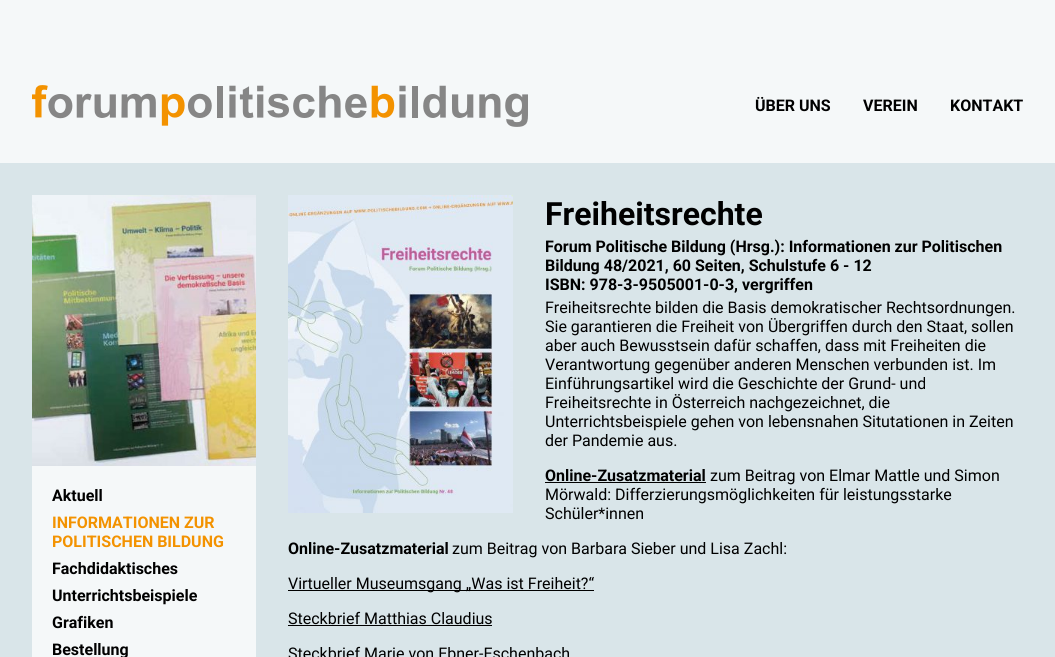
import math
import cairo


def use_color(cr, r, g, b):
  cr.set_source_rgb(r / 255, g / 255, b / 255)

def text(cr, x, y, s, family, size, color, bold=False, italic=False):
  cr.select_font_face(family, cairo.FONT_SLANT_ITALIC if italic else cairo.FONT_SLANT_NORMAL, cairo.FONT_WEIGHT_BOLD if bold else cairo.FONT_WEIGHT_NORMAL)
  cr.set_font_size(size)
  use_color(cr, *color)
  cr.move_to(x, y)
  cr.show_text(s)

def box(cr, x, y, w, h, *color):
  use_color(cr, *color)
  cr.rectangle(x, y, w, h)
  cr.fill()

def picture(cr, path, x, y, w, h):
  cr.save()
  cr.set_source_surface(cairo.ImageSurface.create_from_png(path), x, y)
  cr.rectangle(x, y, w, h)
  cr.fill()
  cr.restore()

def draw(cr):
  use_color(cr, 217, 229, 233)
  cr.paint()
  box(cr, 0, 0, 1055, 163, 245, 248, 249)
  picture(cr, "img_01.png", 32, 85, 496, 42)
  box(cr, 32, 466, 224, 191, 245, 248, 249)
  picture(cr, "img_02.png", 32, 195, 224, 271)
  picture(cr, "img_03.png", 288, 195, 225, 318)
  box(cr, 545, 482, 161, 1, 0, 0, 0)
  box(cr, 288, 590, 306, 1, 0, 0, 0)
  box(cr, 288, 625, 204, 1, 0, 0, 0)
  text(cr, 755, 111, "ÜBER UNS", "Roboto", 16, (0, 0, 0), bold=True)
  text(cr, 863, 111, "VEREIN", "Roboto", 16, (0, 0, 0), bold=True)
  text(cr, 950, 111, "KONTAKT", "Roboto", 16, (0, 0, 0), bold=True)
  text(cr, 52, 501, "Aktuell", "Roboto", 16, (0, 0, 0), bold=True)
  text(cr, 52, 528, "INFORMATIONEN ZUR", "Roboto", 16, (243, 146, 0), bold=True)
  text(cr, 52, 547, "POLITISCHEN BILDUNG", "Roboto", 16, (243, 146, 0), bold=True)
  text(cr, 52, 574, "Fachdidaktisches", "Roboto", 16, (0, 0, 0), bold=True)
  text(cr, 52, 601, "Unterrichtsbeispiele", "Roboto", 16, (0, 0, 0), bold=True)
  text(cr, 52, 628, "Grafiken", "Roboto", 16, (0, 0, 0), bold=True)
  text(cr, 52, 655, "Bestellung", "Roboto", 16, (0, 0, 0), bold=True)
  text(cr, 545, 225, "Freiheitsrechte", "Roboto", 32, (0, 0, 0), bold=True)
  text(cr, 545, 252, "Forum Politische Bildung (Hrsg.): Informationen zur Politischen", "Roboto", 16, (0, 0, 0), bold=True)
  text(cr, 545, 271, "Bildung 48/2021, 60 Seiten, Schulstufe 6 - 12", "Roboto", 16, (0, 0, 0), bold=True)
  text(cr, 545, 290, "ISBN: 978-3-9505001-0-3, vergriffen", "Roboto", 16, (0, 0, 0), bold=True)
  text(cr, 545, 313, "Freiheitsrechte bilden die Basis demokratischer Rechtsordnungen.", "Roboto", 16, (0, 0, 0))
  text(cr, 545, 332, "Sie garantieren die Freiheit von Übergriffen durch den Staat, sollen", "Roboto", 16, (0, 0, 0))
  text(cr, 545, 351, "aber auch Bewusstsein dafür schaffen, dass mit Freiheiten die", "Roboto", 16, (0, 0, 0))
  text(cr, 545, 370, "Verantwortung gegenüber anderen Menschen verbunden ist. Im", "Roboto", 16, (0, 0, 0))
  text(cr, 545, 389, "Einführungsartikel wird die Geschichte der Grund- und", "Roboto", 16, (0, 0, 0))
  text(cr, 545, 408, "Freiheitsrechte in Österreich nachgezeichnet, die", "Roboto", 16, (0, 0, 0))
  text(cr, 545, 427, "Unterrichtsbeispiele gehen von lebensnahen Situtationen in Zeiten", "Roboto", 16, (0, 0, 0))
  text(cr, 545, 446, "der Pandemie aus.", "Roboto", 16, (0, 0, 0))
  text(cr, 545, 481, "Online-Zusatzmaterial", "Roboto", 16, (0, 0, 0), bold=True)
  text(cr, 710, 481, "zum Beitrag von Elmar Mattle und Simon", "Roboto", 16, (0, 0, 0))
  text(cr, 545, 500, "Mörwald: Differzierungsmöglichkeiten für leistungsstarke", "Roboto", 16, (0, 0, 0))
  text(cr, 545, 519, "Schüler*innen", "Roboto", 16, (0, 0, 0))
  text(cr, 288, 554, "Online-Zusatzmaterial", "Roboto", 16, (0, 0, 0), bold=True)
  text(cr, 452, 554, "zum Beitrag von Barbara Sieber und Lisa Zachl:", "Roboto", 16, (0, 0, 0))
  text(cr, 288, 589, "Virtueller Museumsgang „Was ist Freiheit?“", "Roboto", 16, (0, 0, 0))
  text(cr, 288, 624, "Steckbrief Matthias Claudius", "Roboto", 16, (0, 0, 0))
  text(cr, 288, 659, "Steckbrief Marie von Ebner-Eschenbach", "Roboto", 16, (0, 0, 0))


surface = cairo.ImageSurface(cairo.FORMAT_RGB24, 1055, 657)
cr = cairo.Context(surface)
options = cairo.FontOptions()
options.set_hint_metrics(cairo.HINT_METRICS_OFF)
options.set_hint_style(cairo.HINT_STYLE_NONE)
cr.set_font_options(options)
cr.set_miter_limit(4)
draw(cr)
surface.write_to_png("out.png")
